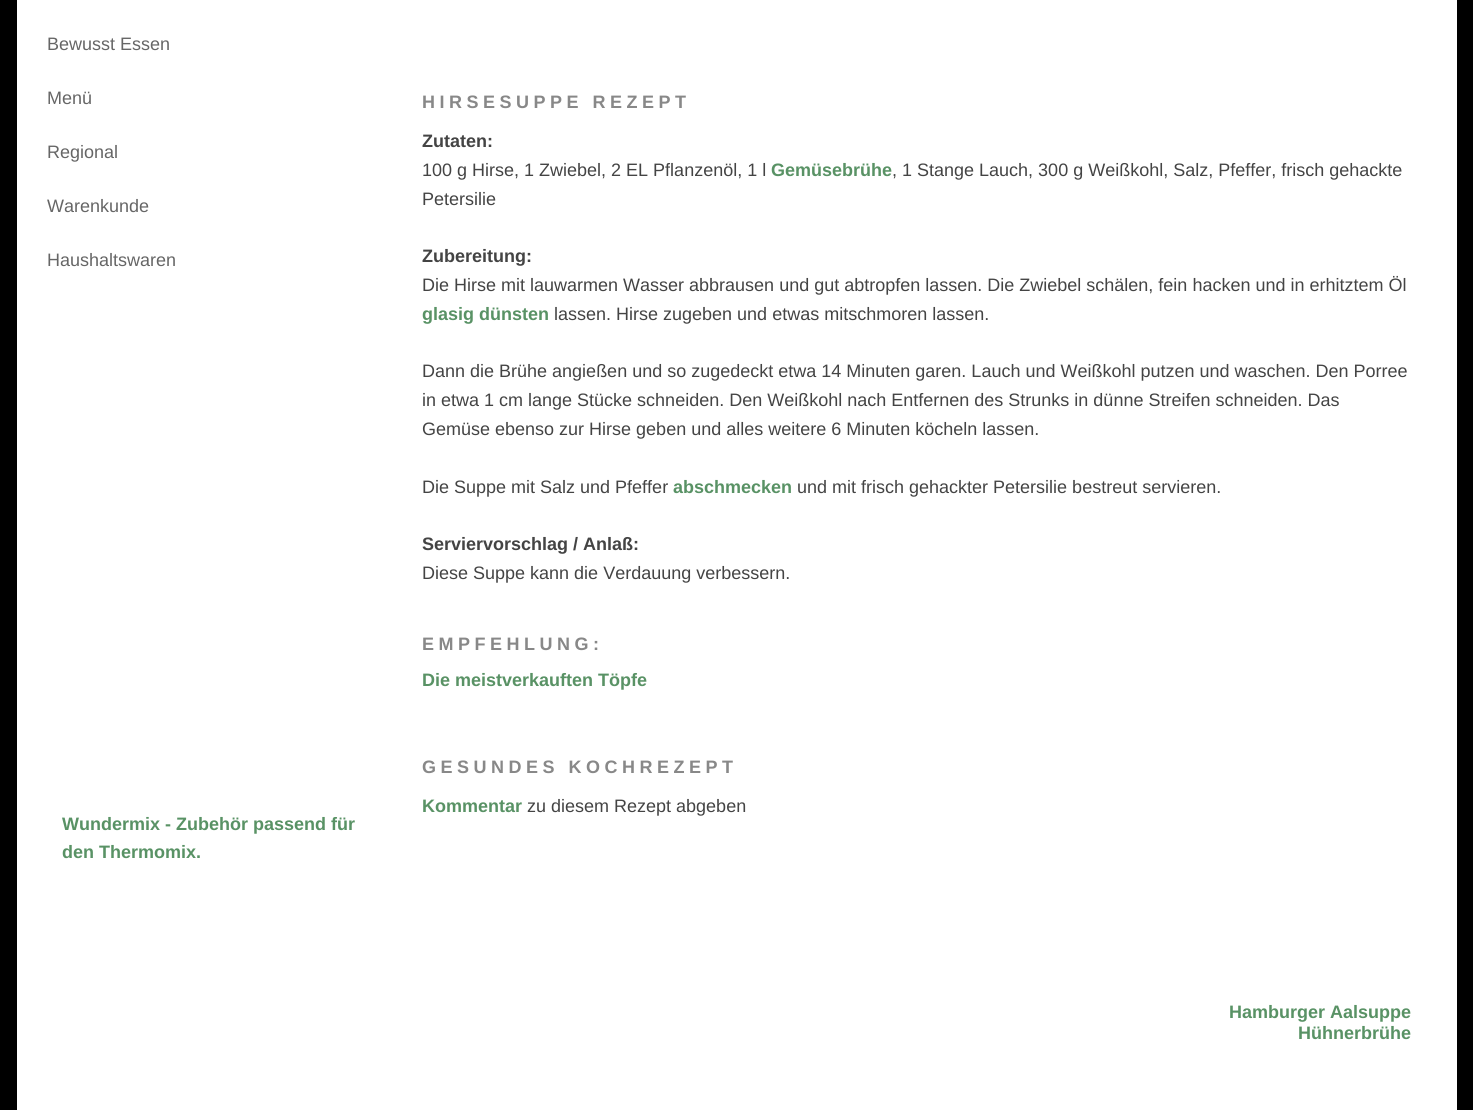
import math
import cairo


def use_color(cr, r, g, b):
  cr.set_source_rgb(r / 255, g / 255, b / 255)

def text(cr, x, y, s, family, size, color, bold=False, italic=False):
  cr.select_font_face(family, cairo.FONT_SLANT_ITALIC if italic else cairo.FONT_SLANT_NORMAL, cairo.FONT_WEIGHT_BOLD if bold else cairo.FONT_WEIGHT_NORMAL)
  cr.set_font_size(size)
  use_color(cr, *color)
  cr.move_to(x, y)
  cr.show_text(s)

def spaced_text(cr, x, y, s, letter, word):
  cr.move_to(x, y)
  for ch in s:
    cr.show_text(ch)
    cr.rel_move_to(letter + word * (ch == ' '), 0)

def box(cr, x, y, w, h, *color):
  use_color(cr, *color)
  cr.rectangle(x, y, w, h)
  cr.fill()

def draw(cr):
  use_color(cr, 0, 0, 0)
  cr.paint()
  box(cr, 17, 0, 1440, 1110, 255, 255, 255)
  text(cr, 47, 50, "Bewusst Essen", "Liberation Sans", 18, (102, 102, 102))
  text(cr, 47, 104, "Menü", "Liberation Sans", 18, (102, 102, 102))
  text(cr, 47, 158, "Regional", "Liberation Sans", 18, (102, 102, 102))
  text(cr, 47, 212, "Warenkunde", "Liberation Sans", 18, (102, 102, 102))
  text(cr, 47, 266, "Haushaltswaren", "Liberation Sans", 18, (102, 102, 102))
  text(cr, 62, 830, "Wundermix - Zubehör passend für", "Liberation Sans", 18, (89, 146, 101), bold=True)
  text(cr, 62, 858, "den Thermomix.", "Liberation Sans", 18, (89, 146, 101), bold=True)
  use_color(cr, 136, 136, 136)
  spaced_text(cr, 422, 108, "HIRSESUPPE REZEPT", 4.5, 0)
  text(cr, 422, 147, "Zutaten:", "Liberation Sans", 18, (68, 68, 68), bold=True)
  text(cr, 422, 176, "100 g Hirse, 1 Zwiebel, 2 EL Pflanzenöl, 1 l", "Liberation Sans", 18, (68, 68, 68))
  text(cr, 771, 176, "Gemüsebrühe", "Liberation Sans", 18, (89, 146, 101), bold=True)
  text(cr, 892, 176, ", 1 Stange Lauch, 300 g Weißkohl, Salz, Pfeffer, frisch gehackte", "Liberation Sans", 18, (68, 68, 68))
  text(cr, 422, 205, "Petersilie", "Liberation Sans", 18, (68, 68, 68))
  text(cr, 422, 262, "Zubereitung:", "Liberation Sans", 18, (68, 68, 68), bold=True)
  text(cr, 422, 291, "Die Hirse mit lauwarmen Wasser abbrausen und gut abtropfen lassen. Die Zwiebel schälen, fein hacken und in erhitztem Öl", "Liberation Sans", 18, (68, 68, 68))
  text(cr, 422, 320, "glasig dünsten", "Liberation Sans", 18, (89, 146, 101), bold=True)
  text(cr, 554, 320, "lassen. Hirse zugeben und etwas mitschmoren lassen.", "Liberation Sans", 18, (68, 68, 68))
  text(cr, 422, 377, "Dann die Brühe angießen und so zugedeckt etwa 14 Minuten garen. Lauch und Weißkohl putzen und waschen. Den Porree", "Liberation Sans", 18, (68, 68, 68))
  text(cr, 422, 406, "in etwa 1 cm lange Stücke schneiden. Den Weißkohl nach Entfernen des Strunks in dünne Streifen schneiden. Das", "Liberation Sans", 18, (68, 68, 68))
  text(cr, 422, 435, "Gemüse ebenso zur Hirse geben und alles weitere 6 Minuten köcheln lassen.", "Liberation Sans", 18, (68, 68, 68))
  text(cr, 422, 493, "Die Suppe mit Salz und Pfeffer", "Liberation Sans", 18, (68, 68, 68))
  text(cr, 673, 493, "abschmecken", "Liberation Sans", 18, (89, 146, 101), bold=True)
  text(cr, 797, 493, "und mit frisch gehackter Petersilie bestreut servieren.", "Liberation Sans", 18, (68, 68, 68))
  text(cr, 422, 550, "Serviervorschlag / Anlaß:", "Liberation Sans", 18, (68, 68, 68), bold=True)
  text(cr, 422, 579, "Diese Suppe kann die Verdauung verbessern.", "Liberation Sans", 18, (68, 68, 68))
  cr.select_font_face("Liberation Sans", cairo.FONT_SLANT_NORMAL, cairo.FONT_WEIGHT_BOLD)
  use_color(cr, 136, 136, 136)
  spaced_text(cr, 422, 650, "EMPFEHLUNG:", 4.5, 0)
  text(cr, 422, 686, "Die meistverkauften Töpfe", "Liberation Sans", 18, (89, 146, 101), bold=True)
  use_color(cr, 136, 136, 136)
  spaced_text(cr, 422, 773, "GESUNDES KOCHREZEPT", 4.5, 0)
  text(cr, 422, 812, "Kommentar", "Liberation Sans", 18, (89, 146, 101), bold=True)
  text(cr, 527, 812, "zu diesem Rezept abgeben", "Liberation Sans", 18, (68, 68, 68))
  text(cr, 1229, 1018, "Hamburger Aalsuppe", "Liberation Sans", 18, (89, 146, 101), bold=True)
  text(cr, 1298, 1039, "Hühnerbrühe", "Liberation Sans", 18, (89, 146, 101), bold=True)


surface = cairo.ImageSurface(cairo.FORMAT_RGB24, 1473, 1110)
cr = cairo.Context(surface)
options = cairo.FontOptions()
options.set_hint_metrics(cairo.HINT_METRICS_OFF)
options.set_hint_style(cairo.HINT_STYLE_NONE)
cr.set_font_options(options)
cr.set_miter_limit(4)
draw(cr)
surface.write_to_png("out.png")
